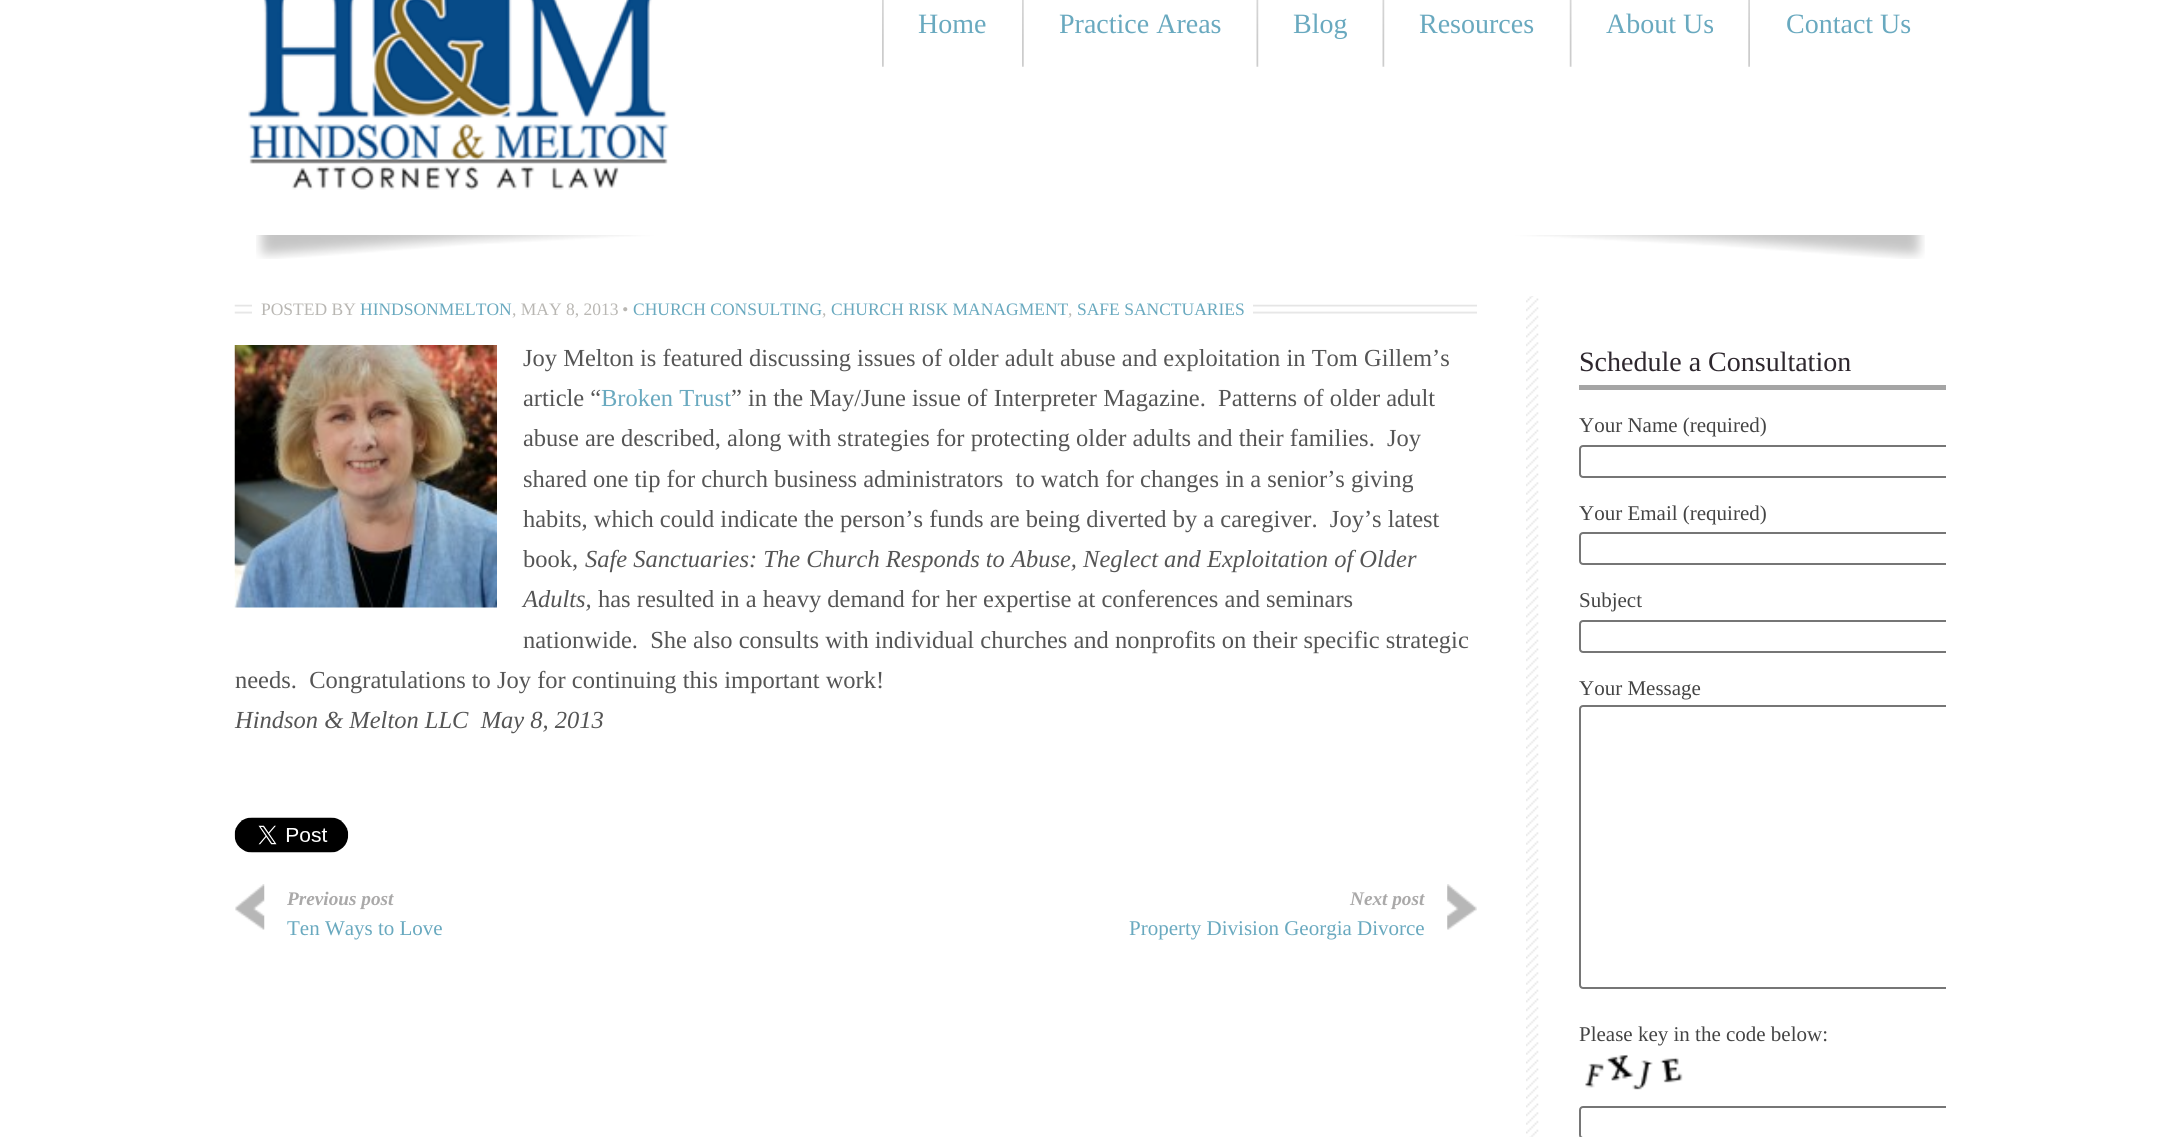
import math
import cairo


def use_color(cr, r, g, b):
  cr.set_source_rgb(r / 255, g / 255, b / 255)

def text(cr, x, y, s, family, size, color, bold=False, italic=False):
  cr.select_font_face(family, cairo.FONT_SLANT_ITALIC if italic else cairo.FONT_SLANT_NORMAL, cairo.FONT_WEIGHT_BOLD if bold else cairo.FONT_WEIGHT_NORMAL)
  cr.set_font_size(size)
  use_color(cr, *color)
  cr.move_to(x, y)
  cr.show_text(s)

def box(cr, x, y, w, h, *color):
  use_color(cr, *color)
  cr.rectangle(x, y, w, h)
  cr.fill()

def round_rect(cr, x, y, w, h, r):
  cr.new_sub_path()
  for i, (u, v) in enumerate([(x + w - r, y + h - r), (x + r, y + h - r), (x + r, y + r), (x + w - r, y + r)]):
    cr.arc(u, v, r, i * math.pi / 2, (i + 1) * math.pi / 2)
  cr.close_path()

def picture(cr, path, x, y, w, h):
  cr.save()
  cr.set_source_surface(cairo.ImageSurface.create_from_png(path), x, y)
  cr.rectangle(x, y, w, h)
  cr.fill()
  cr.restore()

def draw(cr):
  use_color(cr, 255, 255, 255)
  cr.paint()
  picture(cr, "img_01.png", 248, 0, 421, 190)
  picture(cr, "img_02.png", 882, 0, 2, 67)
  picture(cr, "img_02.png", 1022, 0, 2, 67)
  picture(cr, "img_03.png", 1256, 0, 3, 67)
  picture(cr, "img_03.png", 1382, 0, 3, 67)
  picture(cr, "img_04.png", 1569, 0, 3, 67)
  picture(cr, "img_05.png", 1748, 0, 2, 67)
  picture(cr, "img_06.png", 256, 235, 1669, 24)
  picture(cr, "img_07.png", 234, 304, 1243, 10)
  box(cr, 252, 304, 259, 10, 255, 255, 255)
  box(cr, 511, 299, 9, 20, 255, 255, 255)
  box(cr, 520, 304, 98, 10, 255, 255, 255)
  box(cr, 618, 299, 5, 20, 255, 255, 255)
  box(cr, 623, 304, 200, 10, 255, 255, 255)
  box(cr, 823, 299, 8, 20, 255, 255, 255)
  box(cr, 831, 304, 237, 10, 255, 255, 255)
  box(cr, 1068, 299, 8, 20, 255, 255, 255)
  box(cr, 1076, 304, 177, 10, 255, 255, 255)
  picture(cr, "img_08.png", 234, 345, 263, 263)
  picture(cr, "img_09.png", 234, 817, 115, 36)
  picture(cr, "img_10.png", 235, 884, 30, 46)
  picture(cr, "img_11.png", 1447, 884, 30, 46)
  picture(cr, "img_12.png", 1526, 296, 13, 841)
  box(cr, 1579, 385, 367, 5, 165, 165, 165)
  cr.save()
  cr.rectangle(235, 235, 1711, 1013)
  cr.clip()
  round_rect(cr, 1580, 446, 496, 31, 3)
  use_color(cr, 118, 118, 118)
  cr.stroke()
  round_rect(cr, 1580, 533, 496, 31, 3)
  cr.stroke()
  round_rect(cr, 1580, 621, 496, 31, 3)
  cr.stroke()
  round_rect(cr, 1580, 706, 425, 282, 3)
  cr.stroke()
  cr.restore()
  picture(cr, "img_13.png", 1585, 1054, 98, 36)
  cr.save()
  cr.rectangle(235, 235, 1711, 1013)
  cr.clip()
  round_rect(cr, 1580, 1107, 521, 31, 3)
  use_color(cr, 118, 118, 118)
  cr.stroke()
  cr.restore()
  text(cr, 918, 33, "Home", "Liberation Serif", 28, (105, 169, 191))
  text(cr, 1059, 33, "Practice Areas", "Liberation Serif", 28, (105, 169, 191))
  text(cr, 1293, 33, "Blog", "Liberation Serif", 28, (105, 169, 191))
  text(cr, 1419, 33, "Resources", "Liberation Serif", 28, (105, 169, 191))
  text(cr, 1606, 33, "About Us", "Liberation Serif", 28, (105, 169, 191))
  text(cr, 1786, 33, "Contact Us", "Liberation Serif", 28, (105, 169, 191))
  text(cr, 261, 315, "POSTED BY", "Liberation Serif", 17.5, (185, 183, 179))
  text(cr, 360, 315, "HINDSONMELTON", "Liberation Serif", 17.5, (105, 169, 191))
  text(cr, 512, 315, ", MAY 8, 2013", "Liberation Serif", 17.5, (185, 183, 179))
  text(cr, 622, 315, "•", "Liberation Serif", 17.5, (185, 183, 179), italic=True)
  text(cr, 633, 315, "CHURCH CONSULTING", "Liberation Serif", 17.5, (105, 169, 191))
  text(cr, 831, 315, "CHURCH RISK MANAGMENT", "Liberation Serif", 17.5, (105, 169, 191))
  text(cr, 1077, 315, "SAFE SANCTUARIES", "Liberation Serif", 17.5, (105, 169, 191))
  text(cr, 822, 315, ",", "Liberation Serif", 17.5, (185, 183, 179))
  text(cr, 1068, 315, ",", "Liberation Serif", 17.5, (185, 183, 179))
  text(cr, 523, 366, "Joy Melton is featured discussing issues of older adult abuse and exploitation in Tom Gillem’s", "Liberation Serif", 24.5, (85, 85, 85))
  text(cr, 523, 406, "article “", "Liberation Serif", 24.5, (85, 85, 85))
  text(cr, 601, 406, "Broken Trust", "Liberation Serif", 24.5, (105, 169, 191))
  text(cr, 731, 406, "” in the May/June issue of Interpreter Magazine.  Patterns of older adult", "Liberation Serif", 24.5, (85, 85, 85))
  text(cr, 523, 446, "abuse are described, along with strategies for protecting older adults and their families.  Joy", "Liberation Serif", 24.5, (85, 85, 85))
  text(cr, 523, 487, "shared one tip for church business administrators  to watch for changes in a senior’s giving", "Liberation Serif", 24.5, (85, 85, 85))
  text(cr, 523, 527, "habits, which could indicate the person’s funds are being diverted by a caregiver.  Joy’s latest", "Liberation Serif", 24.5, (85, 85, 85))
  text(cr, 523, 567, "book,", "Liberation Serif", 24.5, (85, 85, 85))
  text(cr, 585, 567, "Safe Sanctuaries: The Church Responds to Abuse, Neglect and Exploitation of Older", "Liberation Serif", 24.5, (85, 85, 85), italic=True)
  text(cr, 523, 607, "Adults,", "Liberation Serif", 24.5, (85, 85, 85), italic=True)
  text(cr, 598, 607, "has resulted in a heavy demand for her expertise at conferences and seminars", "Liberation Serif", 24.5, (85, 85, 85))
  text(cr, 523, 648, "nationwide.  She also consults with individual churches and nonprofits on their specific strategic", "Liberation Serif", 24.5, (85, 85, 85))
  text(cr, 235, 688, "needs.  Congratulations to Joy for continuing this important work!", "Liberation Serif", 24.5, (85, 85, 85))
  text(cr, 235, 728, "Hindson & Melton LLC  May 8, 2013", "Liberation Serif", 24.5, (85, 85, 85), italic=True)
  text(cr, 287, 905, "Previous post", "Liberation Serif", 19.25, (170, 169, 169), bold=True, italic=True)
  text(cr, 287, 935, "Ten Ways to Love", "Liberation Serif", 21, (105, 169, 191))
  text(cr, 1350, 905, "Next post", "Liberation Serif", 19.25, (170, 169, 169), bold=True, italic=True)
  text(cr, 1129, 935, "Property Division Georgia Divorce", "Liberation Serif", 21, (105, 169, 191))
  text(cr, 1579, 371, "Schedule a Consultation", "Liberation Serif", 28, (46, 39, 46))
  text(cr, 1579, 432, "Your Name (required)", "Liberation Serif", 21, (68, 68, 68))
  text(cr, 1579, 520, "Your Email (required)", "Liberation Serif", 21, (68, 68, 68))
  text(cr, 1579, 607, "Subject", "Liberation Serif", 21, (68, 68, 68))
  text(cr, 1579, 695, "Your Message", "Liberation Serif", 21, (68, 68, 68))
  text(cr, 1579, 1041, "Please key in the code below:", "Liberation Serif", 21, (68, 68, 68))


surface = cairo.ImageSurface(cairo.FORMAT_RGB24, 2180, 1137)
cr = cairo.Context(surface)
options = cairo.FontOptions()
options.set_hint_metrics(cairo.HINT_METRICS_OFF)
options.set_hint_style(cairo.HINT_STYLE_NONE)
cr.set_font_options(options)
cr.set_miter_limit(4)
draw(cr)
surface.write_to_png("out.png")
